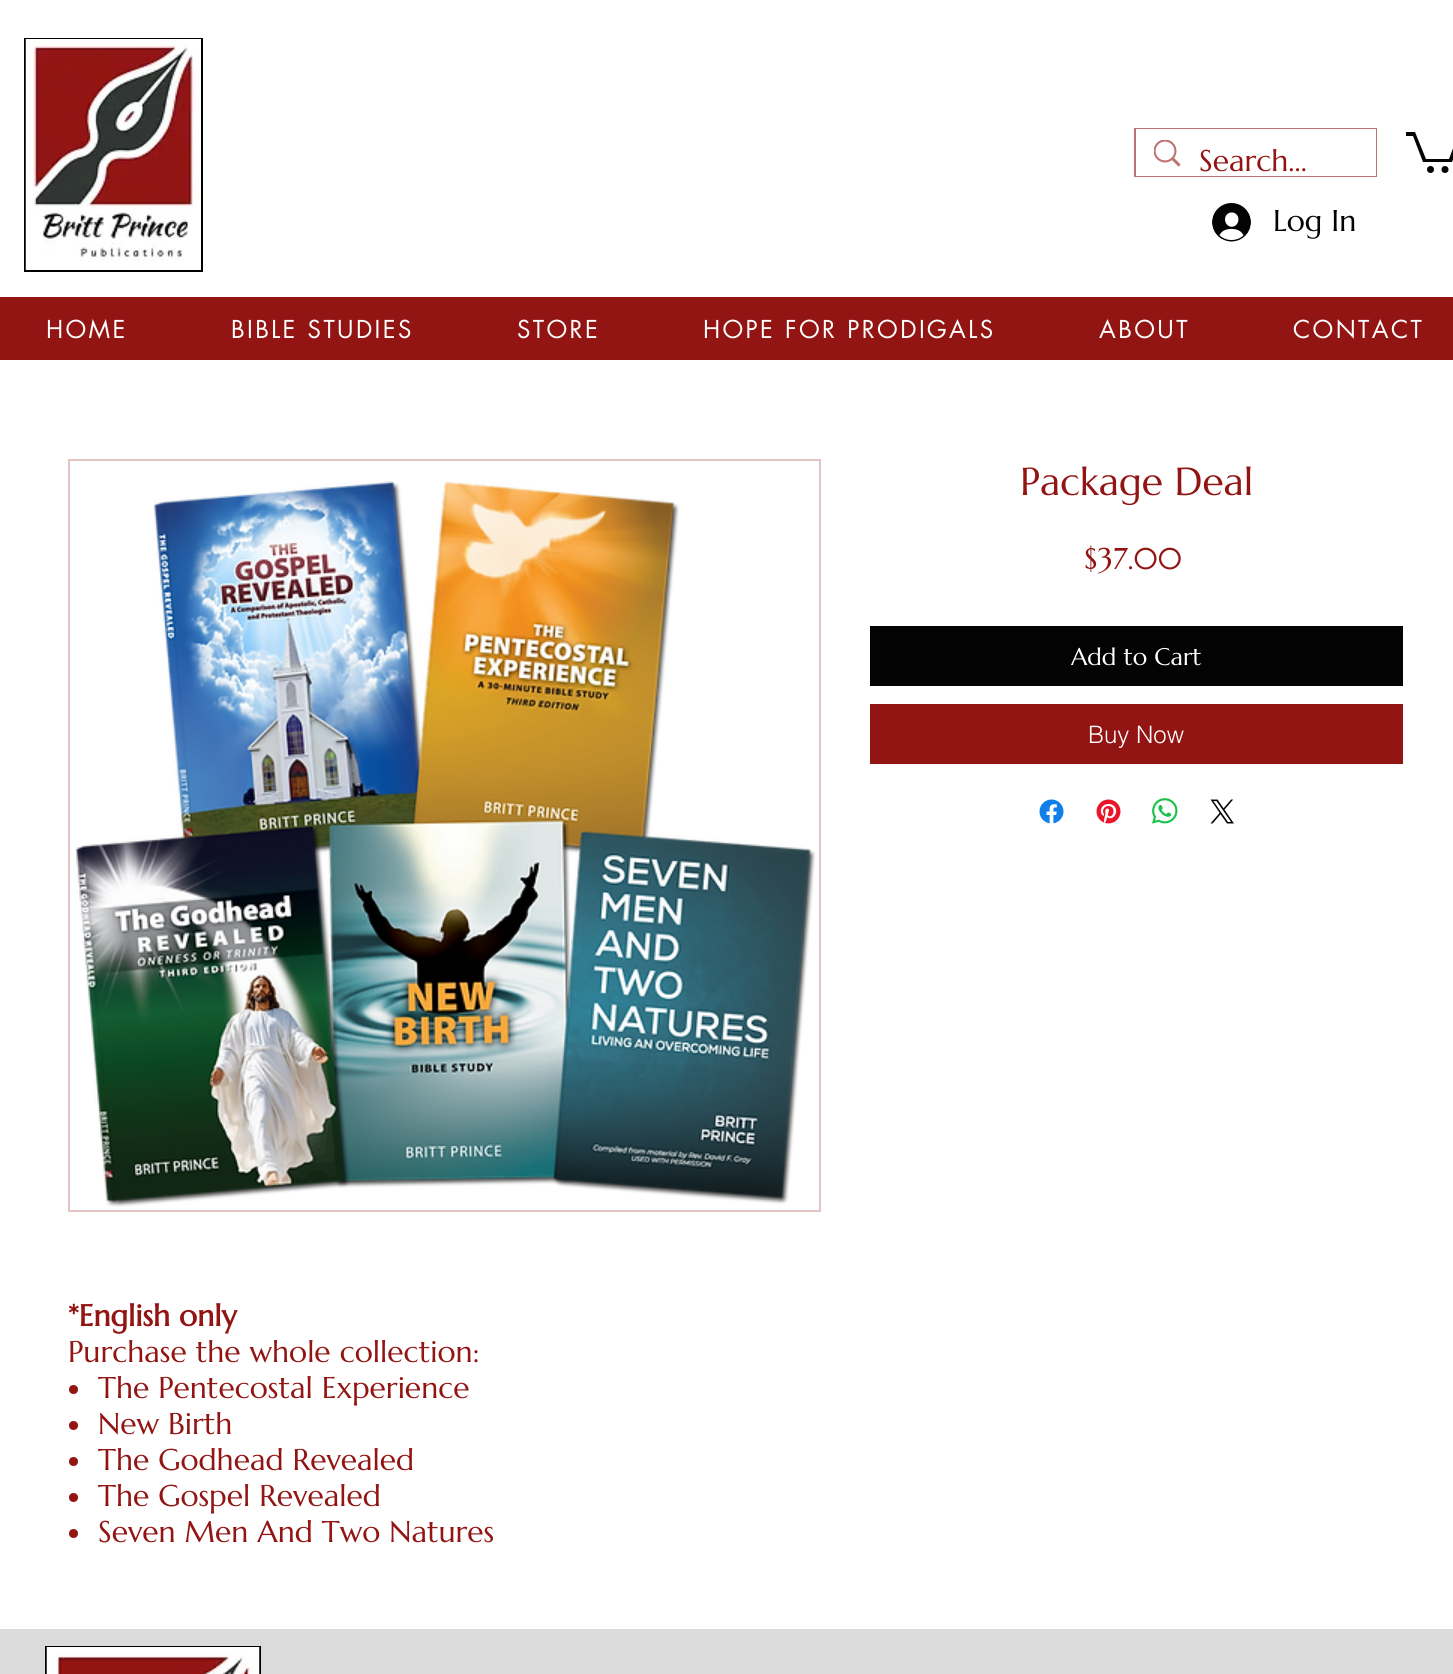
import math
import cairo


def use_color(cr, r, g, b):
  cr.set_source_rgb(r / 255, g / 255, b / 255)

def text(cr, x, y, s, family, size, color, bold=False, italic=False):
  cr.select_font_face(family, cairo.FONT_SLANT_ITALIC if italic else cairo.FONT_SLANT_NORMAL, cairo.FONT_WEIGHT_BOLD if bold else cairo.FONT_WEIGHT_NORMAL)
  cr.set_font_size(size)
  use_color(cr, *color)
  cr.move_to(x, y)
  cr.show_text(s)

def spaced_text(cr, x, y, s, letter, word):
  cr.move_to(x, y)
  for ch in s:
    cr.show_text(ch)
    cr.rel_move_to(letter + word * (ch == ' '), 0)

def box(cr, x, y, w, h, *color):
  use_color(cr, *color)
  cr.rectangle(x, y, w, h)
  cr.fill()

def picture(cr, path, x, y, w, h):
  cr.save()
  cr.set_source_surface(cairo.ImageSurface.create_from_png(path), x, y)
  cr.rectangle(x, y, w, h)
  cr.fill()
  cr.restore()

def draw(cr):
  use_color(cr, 255, 255, 255)
  cr.paint()
  box(cr, 24, 38, 179, 234, 0, 0, 0)
  picture(cr, "img_01.png", 25, 39, 176, 231)
  cr.rectangle(1135, 129, 241, 47)
  use_color(cr, 190, 115, 113)
  cr.stroke()
  box(cr, 1136, 129, 240, 47, 255, 255, 255)
  picture(cr, "img_02.png", 1154, 140, 27, 27)
  use_color(cr, 3, 3, 3)
  cr.new_path()
  cr.move_to(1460, 143)
  cr.line_to(1452, 162)
  cr.line_to(1423, 162)
  cr.line_to(1413, 136)
  cr.line_to(1406, 136)
  cr.line_to(1406, 132)
  cr.line_to(1415, 132)
  cr.line_to(1426, 159)
  cr.line_to(1449, 159)
  cr.line_to(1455, 143)
  cr.fill()
  cr.arc(1445, 169.5, 3.5, 0, 2 * math.pi)
  cr.fill()
  cr.arc(1430.5, 169.5, 3.5, 0, 2 * math.pi)
  cr.fill()
  picture(cr, "img_03.png", 1212, 203, 39, 39)
  box(cr, 0, 297, 1453, 63, 146, 21, 19)
  box(cr, 870, 626, 533, 60, 3, 3, 3)
  box(cr, 870, 704, 533, 60, 146, 21, 19)
  picture(cr, "img_04.png", 1039, 799, 25, 25)
  picture(cr, "img_05.png", 1096, 799, 25, 25)
  picture(cr, "img_06.png", 1152, 798, 26, 26)
  picture(cr, "img_07.png", 1210, 799, 24, 25)
  cr.rectangle(69, 460, 751, 751)
  use_color(cr, 228, 197, 196)
  cr.stroke()
  picture(cr, "img_08.png", 75, 481, 741, 726)
  use_color(cr, 146, 21, 19)
  cr.arc(73.5, 1389.5, 4.5, 0, 2 * math.pi)
  cr.fill()
  cr.arc(73.5, 1425.5, 4.5, 0, 2 * math.pi)
  cr.fill()
  cr.arc(73.5, 1461.5, 4.5, 0, 2 * math.pi)
  cr.fill()
  cr.arc(73.5, 1497.5, 4.5, 0, 2 * math.pi)
  cr.fill()
  cr.arc(73.5, 1533.5, 4.5, 0, 2 * math.pi)
  cr.fill()
  box(cr, 0, 1629, 1453, 45, 219, 219, 219)
  box(cr, 45, 1646, 216, 28, 0, 0, 0)
  picture(cr, "img_09.png", 46, 1647, 214, 27)
  text(cr, 1199, 171, "Search...", "Marcellus", 30, (146, 21, 19))
  text(cr, 1273, 231, "Log In", "Marcellus", 30, (3, 3, 3))
  cr.select_font_face("futura")
  cr.set_font_size(24)
  use_color(cr, 255, 255, 255)
  spaced_text(cr, 46, 338, "HOME", 2.4, 0)
  spaced_text(cr, 231, 338, "BIBLE STUDIES", 2.4, 0)
  spaced_text(cr, 517, 338, "STORE", 2.4, 0)
  spaced_text(cr, 703, 338, "HOPE FOR PRODIGALS", 2.4, 0)
  spaced_text(cr, 1099, 338, "ABOUT", 2.4, 0)
  spaced_text(cr, 1293, 338, "CONTACT", 2.4, 0)
  text(cr, 1020, 495, "Package Deal", "Marcellus", 39, (146, 21, 19))
  text(cr, 1084, 569, "$37.00", "Marcellus", 30, (146, 21, 19))
  text(cr, 1071, 665, "Add to Cart", "Marcellus", 24, (255, 255, 255))
  text(cr, 1088, 743, "Buy Now", "helvetica Light", 24, (255, 255, 255))
  text(cr, 68, 1326, "*English only", "Marcellus", 30, (146, 21, 19), bold=True)
  text(cr, 68, 1362, "Purchase the whole collection:", "Marcellus", 30, (146, 21, 19))
  text(cr, 98, 1398, "The Pentecostal Experience", "Marcellus", 30, (146, 21, 19))
  text(cr, 98, 1434, "New Birth", "Marcellus", 30, (146, 21, 19))
  text(cr, 98, 1470, "The Godhead Revealed", "Marcellus", 30, (146, 21, 19))
  text(cr, 98, 1506, "The Gospel Revealed", "Marcellus", 30, (146, 21, 19))
  text(cr, 98, 1542, "Seven Men And Two Natures", "Marcellus", 30, (146, 21, 19))


surface = cairo.ImageSurface(cairo.FORMAT_RGB24, 1453, 1674)
cr = cairo.Context(surface)
options = cairo.FontOptions()
options.set_hint_metrics(cairo.HINT_METRICS_OFF)
options.set_hint_style(cairo.HINT_STYLE_NONE)
cr.set_font_options(options)
cr.set_miter_limit(4)
draw(cr)
surface.write_to_png("out.png")
